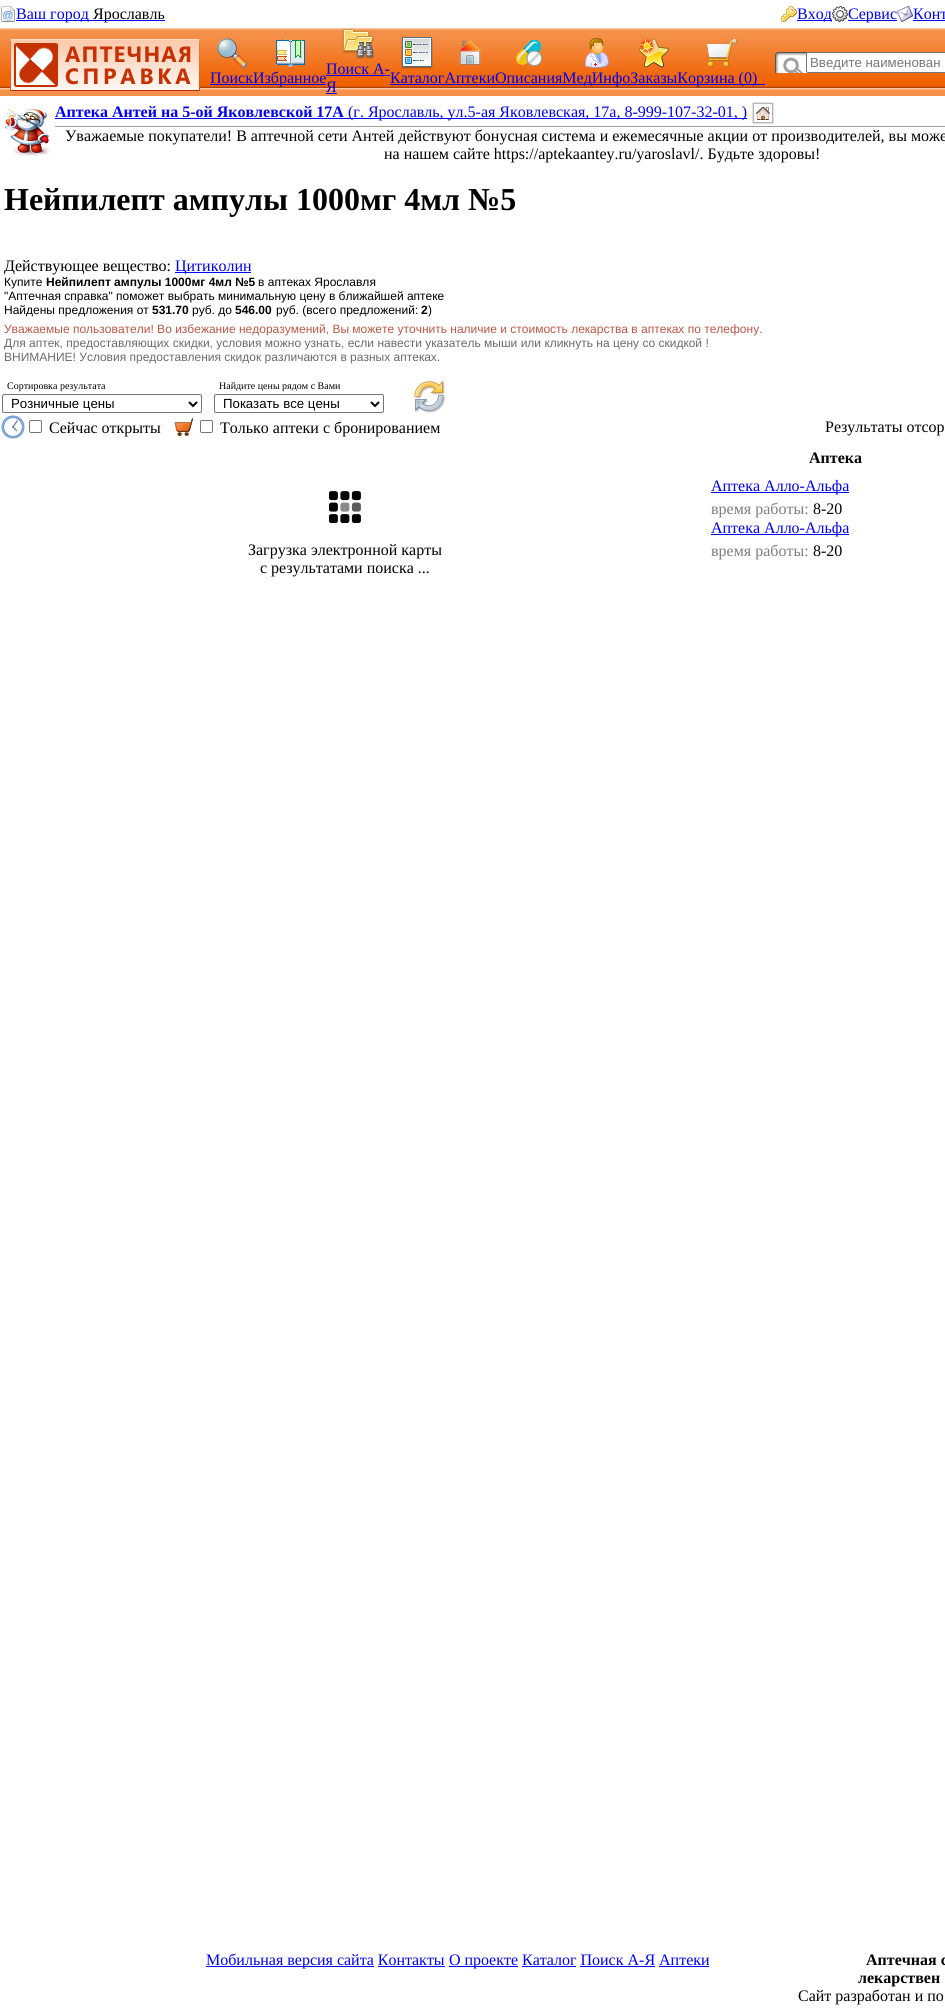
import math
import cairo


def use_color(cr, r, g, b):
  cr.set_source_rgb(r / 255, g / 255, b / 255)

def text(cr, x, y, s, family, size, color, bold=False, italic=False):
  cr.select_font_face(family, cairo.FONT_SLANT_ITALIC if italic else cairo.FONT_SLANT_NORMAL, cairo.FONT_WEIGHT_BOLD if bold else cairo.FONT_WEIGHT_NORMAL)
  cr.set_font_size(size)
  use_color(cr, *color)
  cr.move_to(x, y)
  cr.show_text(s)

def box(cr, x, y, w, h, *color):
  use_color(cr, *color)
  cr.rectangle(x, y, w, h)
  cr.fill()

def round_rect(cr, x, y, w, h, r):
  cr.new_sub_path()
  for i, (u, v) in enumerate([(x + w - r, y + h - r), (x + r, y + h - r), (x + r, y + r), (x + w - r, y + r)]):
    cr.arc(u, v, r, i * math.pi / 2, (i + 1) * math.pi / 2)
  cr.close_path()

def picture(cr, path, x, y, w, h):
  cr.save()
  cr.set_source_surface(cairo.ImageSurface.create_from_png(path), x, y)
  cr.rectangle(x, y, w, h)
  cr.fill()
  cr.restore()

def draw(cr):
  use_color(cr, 255, 255, 255)
  cr.paint()
  picture(cr, "img_01.png", 1, 6, 14, 16)
  box(cr, 16, 20, 149, 1, 0, 0, 238)
  picture(cr, "img_02.png", 781, 6, 16, 16)
  box(cr, 797, 20, 35, 1, 0, 0, 238)
  picture(cr, "img_03.png", 832, 6, 16, 16)
  box(cr, 848, 20, 49, 1, 0, 0, 238)
  picture(cr, "img_04.png", 897, 6, 16, 16)
  box(cr, 913, 20, 32, 1, 0, 0, 238)
  picture(cr, "img_05.png", 0, 28, 945, 68)
  picture(cr, "img_06.png", 10, 39, 190, 52)
  picture(cr, "img_07.png", 276, 38, 29, 29)
  picture(cr, "img_08.png", 342, 29, 32, 30)
  box(cr, 326, 75, 64, 1, 0, 0, 238)
  box(cr, 326, 93, 11, 1, 0, 0, 238)
  picture(cr, "img_09.png", 457, 39, 26, 27)
  picture(cr, "img_10.png", 515, 40, 28, 27)
  picture(cr, "img_11.png", 585, 38, 24, 30)
  picture(cr, "img_12.png", 639, 38, 30, 30)
  picture(cr, "img_13.png", 706, 38, 32, 30)
  picture(cr, "img_14.png", 775, 52, 5, 21)
  picture(cr, "img_15.png", 780, 52, 26, 21)
  picture(cr, "img_16.png", 806, 52, 2, 21)
  use_color(cr, 255, 255, 255)
  round_rect(cr, 806.5, 52.5, 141, 20, 1.5)
  cr.fill_preserve()
  use_color(cr, 118, 118, 118)
  cr.set_line_width(1)
  cr.stroke()
  picture(cr, "img_17.png", 217, 38, 30, 30)
  box(cr, 210, 84, 116, 1, 0, 0, 238)
  picture(cr, "img_18.png", 401, 37, 32, 32)
  box(cr, 390, 84, 375, 1, 0, 0, 238)
  picture(cr, "img_19.png", 4, 108, 46, 48)
  box(cr, 55, 118, 692, 1, 0, 0, 238)
  picture(cr, "img_20.png", 752, 102, 22, 22)
  box(cr, 55, 126, 890, 1, 160, 160, 160)
  box(cr, 175, 272, 76, 1, 0, 0, 238)
  round_rect(cr, 2.5, 394.5, 199, 18, 1.5)
  use_color(cr, 118, 118, 118)
  cr.stroke()
  cr.new_path()
  cr.move_to(189, 402)
  cr.line_to(193, 406)
  cr.line_to(197, 402)
  use_color(cr, 0, 0, 0)
  cr.set_line_width(2)
  cr.stroke()
  round_rect(cr, 214.5, 394.5, 169, 18, 1.5)
  use_color(cr, 118, 118, 118)
  cr.set_line_width(1)
  cr.stroke()
  cr.new_path()
  cr.move_to(371, 402)
  cr.line_to(375, 406)
  cr.line_to(379, 402)
  use_color(cr, 0, 0, 0)
  cr.set_line_width(2)
  cr.stroke()
  picture(cr, "img_21.png", 414, 381, 32, 32)
  picture(cr, "img_22.png", 1, 415, 24, 24)
  round_rect(cr, 29.5, 420.5, 12, 12, 1.5)
  use_color(cr, 118, 118, 118)
  cr.set_line_width(1)
  cr.stroke()
  picture(cr, "img_23.png", 174, 418, 20, 19)
  round_rect(cr, 200.5, 420.5, 12, 12, 1.5)
  cr.stroke()
  picture(cr, "img_24.png", 329, 491, 32, 32)
  box(cr, 711, 492, 138, 1, 0, 0, 238)
  box(cr, 711, 534, 138, 1, 0, 0, 238)
  box(cr, 206, 1966, 168, 1, 0, 0, 238)
  box(cr, 449, 1966, 69, 1, 0, 0, 238)
  box(cr, 378, 1966, 67, 1, 0, 0, 238)
  box(cr, 522, 1966, 54, 1, 0, 0, 238)
  box(cr, 580, 1966, 75, 1, 0, 0, 238)
  box(cr, 659, 1966, 50, 1, 0, 0, 238)
  text(cr, 16, 19, "Ваш город", "Liberation Serif", 16, (0, 0, 238))
  text(cr, 93, 19, "Ярославль", "Liberation Serif", 16, (0, 0, 0))
  text(cr, 797, 19, "Вход", "Liberation Serif", 16, (0, 0, 238))
  text(cr, 848, 19, "Сервис", "Liberation Serif", 16, (0, 0, 238))
  text(cr, 913, 19, "Конт", "Liberation Serif", 16, (0, 0, 238))
  text(cr, 326, 74, "Поиск А-", "Liberation Serif", 16, (0, 0, 238))
  text(cr, 326, 92, "Я", "Liberation Serif", 16, (0, 0, 238))
  text(cr, 810, 67, "Введите наименован", "Liberation Sans", 13.25, (119, 119, 119))
  text(cr, 210, 83, "ПоискИзбранное", "Liberation Serif", 16, (0, 0, 238))
  text(cr, 390, 83, "КаталогАптекиОписанияМедИнфоЗаказыКорзина (0)", "Liberation Serif", 16, (0, 0, 238))
  text(cr, 55, 117, "Аптека Антей на 5-ой Яковлевской 17А", "Liberation Serif", 16, (0, 0, 238), bold=True)
  text(cr, 348, 117, "(г. Ярославль, ул.5-ая Яковлевская, 17а, 8-999-107-32-01, )", "Liberation Serif", 16, (0, 0, 238))
  text(cr, 65, 141, "Уважаемые покупатели! В аптечной сети Антей действуют бонусная система и ежемесячные акции от производителей, вы може", "Liberation Serif", 16, (0, 0, 0))
  text(cr, 384, 159, "на нашем сайте https://aptekaantey.ru/yaroslavl/. Будьте здоровы!", "Liberation Serif", 16, (0, 0, 0))
  text(cr, 4, 210, "Нейпилепт ампулы 1000мг 4мл №5", "Liberation Serif", 32, (0, 0, 0), bold=True)
  text(cr, 4, 271, "Действующее вещество:", "Liberation Serif", 16, (0, 0, 0))
  text(cr, 175, 271, "Цитиколин", "Liberation Serif", 16, (0, 0, 238))
  text(cr, 4, 286, "Купите", "Liberation Sans", 12, (0, 0, 0))
  text(cr, 46, 286, "Нейпилепт ампулы 1000мг 4мл №5", "Liberation Sans", 12, (0, 0, 0), bold=True)
  text(cr, 258, 286, "в аптеках Ярославля", "Liberation Sans", 12, (0, 0, 0))
  text(cr, 4, 300, "\"Аптечная справка\" поможет выбрать минимальную цену в ближайшей аптеке", "Liberation Sans", 12, (0, 0, 0))
  text(cr, 4, 314, "Найдены предложения от", "Liberation Sans", 12, (0, 0, 0))
  text(cr, 152, 314, "531.70", "Liberation Sans", 12, (0, 0, 0), bold=True)
  text(cr, 192, 314, "руб. до", "Liberation Sans", 12, (0, 0, 0))
  text(cr, 235, 314, "546.00", "Liberation Sans", 12, (0, 0, 0), bold=True)
  text(cr, 276, 314, "руб. (всего предложений:", "Liberation Sans", 12, (0, 0, 0))
  text(cr, 421, 314, "2", "Liberation Sans", 12, (0, 0, 0), bold=True)
  text(cr, 428, 314, ")", "Liberation Sans", 12, (0, 0, 0))
  text(cr, 4, 333, "Уважаемые пользователи! Во избежание недоразумений, Вы можете уточнить наличие и стоимость лекарства в аптеках по телефону.", "Liberation Sans", 12, (184, 88, 71))
  text(cr, 4, 347, "Для аптек, предоставляющих скидки, условия можно узнать, если навести указатель мыши или кликнуть на цену со скидкой !", "Liberation Sans", 12, (107, 107, 107))
  text(cr, 4, 361, "ВНИМАНИЕ! Условия предоставления скидок различаются в разных аптеках.", "Liberation Sans", 12, (107, 107, 107))
  text(cr, 7, 389, "Сортировка результата", "Liberation Serif", 10, (0, 0, 0))
  text(cr, 11, 408, "Розничные цены", "Liberation Sans", 13.25, (0, 0, 0))
  text(cr, 219, 389, "Найдите цены рядом с Вами", "Liberation Serif", 10, (0, 0, 0))
  text(cr, 223, 408, "Показать все цены", "Liberation Sans", 13.25, (0, 0, 0))
  text(cr, 49, 433, "Сейчас открыты", "Liberation Serif", 16, (0, 0, 0))
  text(cr, 220, 433, "Только аптеки с бронированием", "Liberation Serif", 16, (0, 0, 0))
  text(cr, 825, 432, "Результаты отсор", "Liberation Serif", 16, (0, 0, 0))
  text(cr, 248, 555, "Загрузка электронной карты", "Liberation Serif", 16, (0, 0, 0))
  text(cr, 260, 573, "с результатами поиска ...", "Liberation Serif", 16, (0, 0, 0))
  text(cr, 809, 463, "Аптека", "Liberation Serif", 16, (0, 0, 0), bold=True)
  text(cr, 711, 491, "Аптека Алло-Альфа", "Liberation Serif", 16, (0, 0, 238))
  text(cr, 711, 514, "время работы:", "Liberation Serif", 16, (126, 126, 126))
  text(cr, 813, 514, "8-20", "Liberation Serif", 16, (0, 0, 0))
  text(cr, 711, 533, "Аптека Алло-Альфа", "Liberation Serif", 16, (0, 0, 238))
  text(cr, 711, 556, "время работы:", "Liberation Serif", 16, (126, 126, 126))
  text(cr, 813, 556, "8-20", "Liberation Serif", 16, (0, 0, 0))
  text(cr, 206, 1965, "Мобильная версия сайта Контакты", "Liberation Serif", 16, (0, 0, 238))
  text(cr, 449, 1965, "О проекте Каталог Поиск А-Я Аптеки", "Liberation Serif", 16, (0, 0, 238))
  text(cr, 866, 1965, "Аптечная с", "Liberation Serif", 16, (0, 0, 0), bold=True)
  text(cr, 858, 1983, "лекарствен", "Liberation Serif", 16, (0, 0, 0), bold=True)
  text(cr, 798, 2001, "Сайт разработан и по", "Liberation Serif", 16, (0, 0, 0))


surface = cairo.ImageSurface(cairo.FORMAT_RGB24, 945, 2015)
cr = cairo.Context(surface)
options = cairo.FontOptions()
options.set_hint_metrics(cairo.HINT_METRICS_OFF)
options.set_hint_style(cairo.HINT_STYLE_NONE)
cr.set_font_options(options)
cr.set_miter_limit(4)
draw(cr)
surface.write_to_png("out.png")
